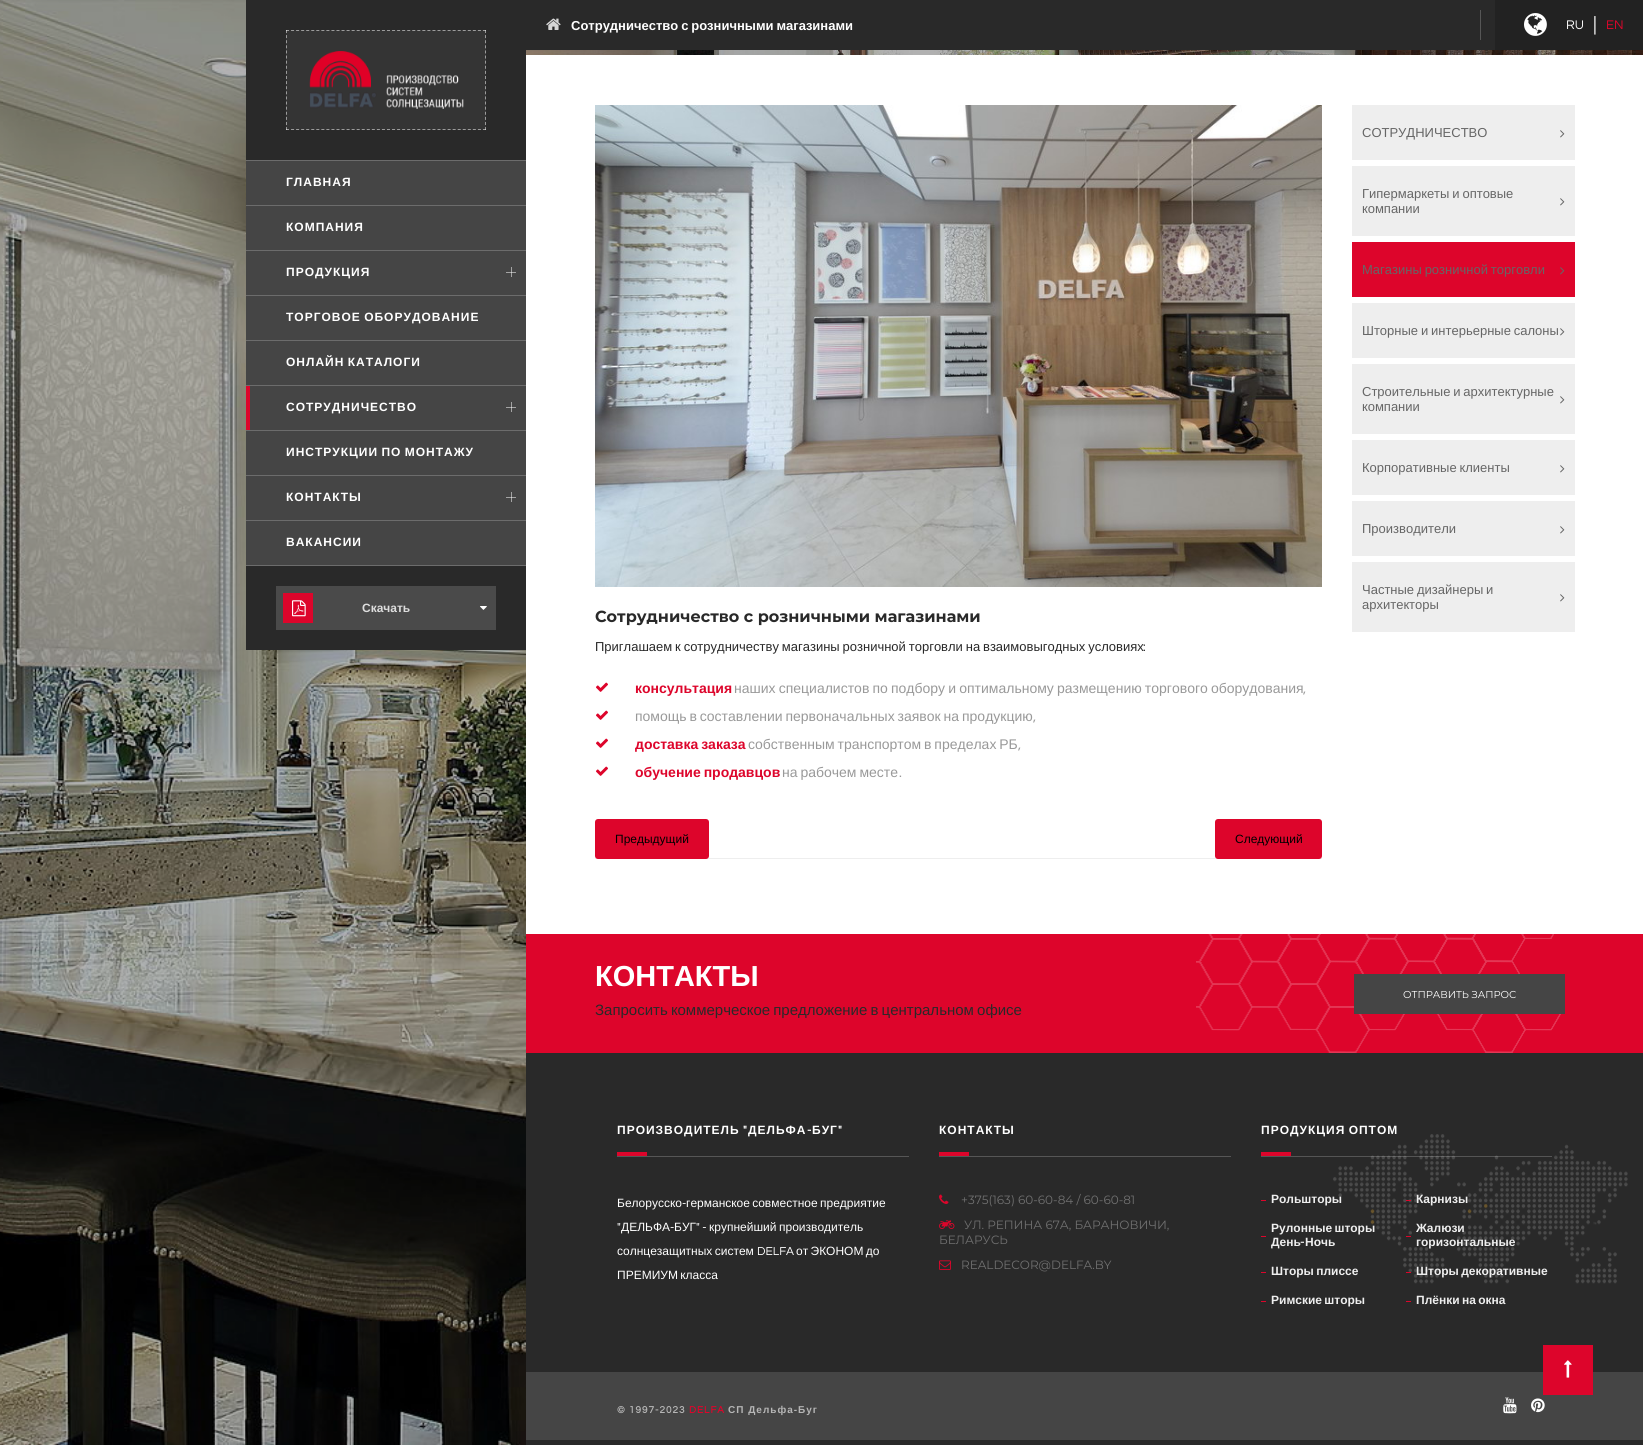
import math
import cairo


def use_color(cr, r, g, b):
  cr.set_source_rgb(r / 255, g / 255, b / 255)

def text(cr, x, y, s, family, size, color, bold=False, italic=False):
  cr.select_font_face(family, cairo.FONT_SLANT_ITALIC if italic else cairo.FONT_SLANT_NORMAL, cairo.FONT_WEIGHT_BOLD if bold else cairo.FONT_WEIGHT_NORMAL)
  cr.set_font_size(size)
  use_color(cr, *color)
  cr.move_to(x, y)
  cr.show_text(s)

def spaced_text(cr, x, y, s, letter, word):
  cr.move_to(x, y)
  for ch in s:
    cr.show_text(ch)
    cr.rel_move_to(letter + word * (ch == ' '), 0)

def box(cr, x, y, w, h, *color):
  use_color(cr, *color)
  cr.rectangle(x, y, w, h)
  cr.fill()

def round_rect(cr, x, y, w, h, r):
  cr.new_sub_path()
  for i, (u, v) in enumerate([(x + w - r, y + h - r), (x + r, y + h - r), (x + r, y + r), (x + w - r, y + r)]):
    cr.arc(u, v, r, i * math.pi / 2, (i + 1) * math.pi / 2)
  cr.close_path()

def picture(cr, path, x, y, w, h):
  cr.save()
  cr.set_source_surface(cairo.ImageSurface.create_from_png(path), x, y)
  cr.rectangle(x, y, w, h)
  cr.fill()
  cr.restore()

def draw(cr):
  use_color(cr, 255, 255, 255)
  cr.paint()
  picture(cr, "img_01.png", 0, 0, 526, 1445)
  box(cr, 526, 0, 969, 50, 41, 41, 41)
  picture(cr, "img_02.png", 546, 18, 15, 12)
  box(cr, 1495, 0, 148, 50, 34, 34, 34)
  box(cr, 1480, 10, 1, 30, 86, 86, 86)
  picture(cr, "img_03.png", 1524, 13, 23, 23)
  box(cr, 246, 0, 280, 650, 41, 41, 41)
  box(cr, 286, 30, 200, 100, 52, 52, 52)
  cr.new_path()
  cr.move_to(286, 30.5)
  cr.line_to(486, 30.5)
  use_color(cr, 156, 156, 156)
  cr.set_line_width(1)
  cr.set_dash([3, 2.05])
  cr.stroke()
  cr.new_path()
  cr.move_to(485.5, 30)
  cr.line_to(485.5, 130)
  cr.set_source_rgba(1, 1, 1, 0.51)
  cr.set_dash([3, 2.11])
  cr.stroke()
  cr.new_path()
  cr.move_to(286, 129.5)
  cr.line_to(486, 129.5)
  cr.set_dash([3, 2.05])
  cr.stroke()
  cr.new_path()
  cr.move_to(286.5, 30)
  cr.line_to(286.5, 130)
  cr.set_dash([3, 2.11])
  cr.stroke()
  picture(cr, "img_04.png", 309, 51, 155, 58)
  box(cr, 246, 161, 280, 44, 69, 69, 69)
  box(cr, 246, 160, 280, 1, 108, 108, 108)
  box(cr, 246, 205, 280, 1, 108, 108, 108)
  box(cr, 246, 206, 280, 44, 69, 69, 69)
  box(cr, 246, 250, 280, 1, 108, 108, 108)
  box(cr, 246, 251, 280, 44, 69, 69, 69)
  box(cr, 246, 295, 280, 1, 108, 108, 108)
  box(cr, 506, 272, 10, 1, 164, 164, 164)
  cr.set_source_rgba(1, 1, 1, 0.51)
  cr.rectangle(511, 267, 1, 10)
  cr.fill()
  box(cr, 246, 296, 280, 44, 69, 69, 69)
  box(cr, 246, 340, 280, 1, 108, 108, 108)
  box(cr, 246, 341, 280, 44, 69, 69, 69)
  box(cr, 246, 385, 280, 1, 108, 108, 108)
  box(cr, 250, 386, 276, 44, 69, 69, 69)
  box(cr, 246, 430, 280, 1, 108, 108, 108)
  box(cr, 246, 386, 4, 44, 221, 5, 43)
  box(cr, 506, 407, 10, 1, 164, 164, 164)
  cr.set_source_rgba(1, 1, 1, 0.51)
  cr.rectangle(511, 402, 1, 10)
  cr.fill()
  box(cr, 246, 431, 280, 44, 69, 69, 69)
  box(cr, 246, 475, 280, 1, 108, 108, 108)
  box(cr, 246, 476, 280, 44, 69, 69, 69)
  box(cr, 246, 520, 280, 1, 108, 108, 108)
  box(cr, 506, 497, 10, 1, 164, 164, 164)
  cr.set_source_rgba(1, 1, 1, 0.51)
  cr.rectangle(511, 492, 1, 10)
  cr.fill()
  box(cr, 246, 521, 280, 44, 69, 69, 69)
  box(cr, 246, 565, 280, 1, 108, 108, 108)
  box(cr, 276, 586, 220, 44, 74, 74, 74)
  box(cr, 283, 593, 30, 30, 221, 5, 43)
  picture(cr, "img_05.png", 292, 600, 14, 17)
  picture(cr, "img_06.png", 480, 606, 7, 4)
  picture(cr, "img_07.png", 526, 50, 1117, 5)
  box(cr, 1352, 105, 223, 55, 238, 238, 238)
  picture(cr, "img_08.png", 1560, 130, 5, 8)
  box(cr, 1352, 166, 223, 70, 238, 238, 238)
  picture(cr, "img_08.png", 1560, 198, 5, 8)
  box(cr, 1352, 242, 223, 55, 221, 5, 43)
  picture(cr, "img_09.png", 1560, 267, 5, 8)
  box(cr, 1352, 303, 223, 55, 238, 238, 238)
  picture(cr, "img_08.png", 1560, 328, 5, 8)
  box(cr, 1352, 364, 223, 70, 238, 238, 238)
  picture(cr, "img_08.png", 1560, 396, 5, 8)
  box(cr, 1352, 440, 223, 55, 238, 238, 238)
  picture(cr, "img_08.png", 1560, 465, 5, 8)
  box(cr, 1352, 501, 223, 55, 238, 238, 238)
  picture(cr, "img_08.png", 1560, 526, 5, 8)
  box(cr, 1352, 562, 223, 70, 238, 238, 238)
  picture(cr, "img_08.png", 1560, 594, 5, 8)
  picture(cr, "img_10.png", 595, 105, 727, 482)
  picture(cr, "img_11.png", 596, 682, 12, 10)
  picture(cr, "img_11.png", 596, 710, 12, 10)
  picture(cr, "img_11.png", 596, 738, 12, 10)
  picture(cr, "img_11.png", 596, 766, 12, 10)
  box(cr, 595, 858, 727, 1, 238, 238, 238)
  use_color(cr, 221, 5, 43)
  round_rect(cr, 595, 819, 114, 40, 3)
  cr.fill()
  round_rect(cr, 1215, 819, 107, 40, 3)
  cr.fill()
  box(cr, 526, 934, 1117, 119, 221, 5, 43)
  picture(cr, "img_12.png", 1196, 934, 365, 119)
  box(cr, 1354, 974, 211, 40, 69, 69, 69)
  box(cr, 526, 1053, 1117, 392, 41, 41, 41)
  box(cr, 617, 1152, 30, 4, 221, 5, 43)
  box(cr, 617, 1156, 292, 1, 86, 86, 86)
  box(cr, 939, 1152, 30, 4, 221, 5, 43)
  box(cr, 939, 1156, 292, 1, 86, 86, 86)
  picture(cr, "img_13.png", 939, 1194, 10, 10)
  picture(cr, "img_14.png", 939, 1220, 16, 9)
  picture(cr, "img_15.png", 939, 1260, 12, 10)
  box(cr, 1261, 1152, 30, 4, 221, 5, 43)
  picture(cr, "img_16.png", 1333, 1134, 295, 150)
  cr.set_source_rgba(1, 1, 1, 0.21)
  cr.rectangle(1261, 1156, 291, 1)
  cr.fill()
  box(cr, 1261, 1200, 5, 1, 221, 5, 43)
  box(cr, 1261, 1236, 5, 1, 221, 5, 43)
  box(cr, 1261, 1272, 5, 1, 221, 5, 43)
  box(cr, 1261, 1301, 5, 1, 221, 5, 43)
  box(cr, 1406, 1200, 5, 1, 221, 5, 43)
  box(cr, 1406, 1236, 5, 1, 221, 5, 43)
  box(cr, 1406, 1272, 5, 1, 221, 5, 43)
  box(cr, 1406, 1301, 5, 1, 221, 5, 43)
  box(cr, 526, 1372, 1117, 68, 69, 69, 69)
  picture(cr, "img_17.png", 1503, 1397, 14, 17)
  picture(cr, "img_18.png", 1531, 1398, 14, 15)
  box(cr, 1543, 1345, 50, 50, 221, 5, 43)
  picture(cr, "img_19.png", 1564, 1360, 8, 18)
  cr.select_font_face("Liberation Sans", cairo.FONT_SLANT_NORMAL, cairo.FONT_WEIGHT_BOLD)
  cr.set_font_size(13)
  use_color(cr, 255, 255, 255)
  spaced_text(cr, 571, 30, "Сотрудничество с розничными магазинами", 0, -0.75)
  text(cr, 1566, 29, "RU", "Questrial", 13, (255, 255, 255))
  text(cr, 1593, 31, "|", "Questrial", 20, (255, 255, 255))
  text(cr, 1606, 29, "EN", "Questrial", 13, (221, 5, 43))
  cr.select_font_face("Liberation Sans", cairo.FONT_SLANT_NORMAL, cairo.FONT_WEIGHT_BOLD)
  cr.set_font_size(12)
  use_color(cr, 255, 255, 255)
  spaced_text(cr, 286, 186, "ГЛАВНАЯ", 1, 0)
  spaced_text(cr, 286, 231, "КОМПАНИЯ", 1, 0)
  spaced_text(cr, 286, 276, "ПРОДУКЦИЯ", 1, 0)
  spaced_text(cr, 286, 321, "ТОРГОВОЕ ОБОРУДОВАНИЕ", 1, -1)
  spaced_text(cr, 286, 366, "ОНЛАЙН КАТАЛОГИ", 1, -1)
  spaced_text(cr, 286, 411, "СОТРУДНИЧЕСТВО", 1, 0)
  spaced_text(cr, 286, 456, "ИНСТРУКЦИИ ПО МОНТАЖУ", 1, -1)
  spaced_text(cr, 286, 501, "КОНТАКТЫ", 1, 0)
  spaced_text(cr, 286, 546, "ВАКАНСИИ", 1, 0)
  text(cr, 362, 612, "Скачать", "Liberation Sans", 12, (221, 221, 221), bold=True)
  text(cr, 1362, 137, "СОТРУДНИЧЕСТВО", "Liberation Sans", 13, (102, 102, 102))
  spaced_text(cr, 1362, 198, "Гипермаркеты и оптовые", 0, -0.75)
  text(cr, 1362, 213, "компании", "Liberation Sans", 13, (102, 102, 102))
  spaced_text(cr, 1362, 274, "Магазины розничной торговли", 0, -0.75)
  spaced_text(cr, 1362, 335, "Шторные и интерьерные салоны", 0, -0.75)
  spaced_text(cr, 1362, 396, "Строительные и архитектурные", 0, -0.75)
  text(cr, 1362, 411, "компании", "Liberation Sans", 13, (102, 102, 102))
  spaced_text(cr, 1362, 472, "Корпоративные клиенты", 0, -0.75)
  text(cr, 1362, 533, "Производители", "Liberation Sans", 13, (102, 102, 102))
  spaced_text(cr, 1362, 594, "Частные дизайнеры и", 0, -0.75)
  text(cr, 1362, 609, "архитекторы", "Liberation Sans", 13, (102, 102, 102))
  text(cr, 595, 622, "Сотрудничество с розничными магазинами", "Montserrat", 16, (41, 41, 41), bold=True)
  cr.select_font_face("Liberation Sans")
  cr.set_font_size(13)
  spaced_text(cr, 595, 651, "Приглашаем к сотрудничеству магазины розничной торговли на взаимовыгодных условиях", 0, -0.75)
  text(cr, 1143, 651, ":", "Questrial", 13, (41, 41, 41))
  text(cr, 635, 693, "консультация", "Liberation Sans", 14, (221, 5, 43), bold=True)
  cr.select_font_face("Liberation Sans")
  use_color(cr, 153, 153, 153)
  spaced_text(cr, 734, 693, "наших специалистов по подбору и оптимальному размещению торгового оборудования", 0, -0.75)
  text(cr, 1303, 693, ",", "Questrial", 14, (153, 153, 153))
  cr.select_font_face("Liberation Sans")
  spaced_text(cr, 635, 721, "помощь в составлении первоначальных заявок на продукцию", 0, -1)
  text(cr, 1033, 721, ",", "Questrial", 14, (153, 153, 153))
  cr.select_font_face("Liberation Sans", cairo.FONT_SLANT_NORMAL, cairo.FONT_WEIGHT_BOLD)
  use_color(cr, 221, 5, 43)
  spaced_text(cr, 635, 749, "доставка заказа", 0, -1)
  cr.select_font_face("Liberation Sans")
  use_color(cr, 153, 153, 153)
  spaced_text(cr, 748, 749, "собственным транспортом", 0, -1)
  spaced_text(cr, 924, 749, "в пределах РБ", 0, -1)
  text(cr, 1018, 749, ",", "Questrial", 14, (153, 153, 153))
  cr.select_font_face("Liberation Sans", cairo.FONT_SLANT_NORMAL, cairo.FONT_WEIGHT_BOLD)
  use_color(cr, 221, 5, 43)
  spaced_text(cr, 635, 777, "обучение продавцов", 0, -1)
  cr.select_font_face("Liberation Sans")
  use_color(cr, 153, 153, 153)
  spaced_text(cr, 782, 777, "на рабочем месте", 0, -1)
  text(cr, 899, 777, ".", "Questrial", 14, (153, 153, 153))
  text(cr, 615, 843, "Предыдущий", "Liberation Sans", 12, (0, 0, 0))
  text(cr, 1235, 843, "Следующий", "Liberation Sans", 12, (0, 0, 0))
  text(cr, 595, 986, "КОНТАКТЫ", "Liberation Sans", 29, (255, 255, 255), bold=True)
  cr.select_font_face("Liberation Sans")
  cr.set_font_size(15)
  use_color(cr, 41, 41, 41)
  spaced_text(cr, 595, 1015, "Запросить коммерческое предложение в центральном офисе", 0, -1)
  text(cr, 1403, 998, "ОТПРАВИТЬ ЗАПРОС", "Montserrat", 10, (255, 255, 255))
  cr.select_font_face("Liberation Sans", cairo.FONT_SLANT_NORMAL, cairo.FONT_WEIGHT_BOLD)
  cr.set_font_size(12)
  spaced_text(cr, 617, 1134, "ПРОИЗВОДИТЕЛЬ", 1, 0)
  cr.select_font_face("Questrial", cairo.FONT_SLANT_NORMAL, cairo.FONT_WEIGHT_BOLD)
  spaced_text(cr, 743, 1134, "\"", 1, 0)
  cr.select_font_face("Liberation Sans", cairo.FONT_SLANT_NORMAL, cairo.FONT_WEIGHT_BOLD)
  spaced_text(cr, 748, 1134, "ДЕЛЬФА", 1, 0)
  spaced_text(cr, 812, 1134, "БУГ", 1, 0)
  cr.select_font_face("Questrial", cairo.FONT_SLANT_NORMAL, cairo.FONT_WEIGHT_BOLD)
  spaced_text(cr, 838, 1134, "\"", 1, 0)
  spaced_text(cr, 807, 1134, "-", 1, 0)
  text(cr, 617, 1207, "Белорусско", "Liberation Sans", 12, (255, 255, 255))
  text(cr, 682, 1207, "-", "Questrial", 12, (255, 255, 255))
  cr.select_font_face("Liberation Sans")
  spaced_text(cr, 686, 1207, "германское совместное предриятие", 0, -1)
  text(cr, 617, 1231, "\"", "Questrial", 12, (255, 255, 255))
  text(cr, 621, 1231, "ДЕЛЬФА", "Liberation Sans", 12, (255, 255, 255))
  text(cr, 670, 1231, "-", "Questrial", 12, (255, 255, 255))
  text(cr, 674, 1231, "БУГ", "Liberation Sans", 12, (255, 255, 255))
  text(cr, 696, 1231, "\" -", "Questrial", 12, (255, 255, 255))
  text(cr, 709, 1231, "крупнейший", "Liberation Sans", 12, (255, 255, 255))
  text(cr, 779, 1231, "производитель", "Liberation Sans", 12, (255, 255, 255))
  spaced_text(cr, 617, 1255, "солнцезащитных систем", 0, -1)
  text(cr, 757, 1255, "DELFA", "Questrial", 12, (255, 255, 255))
  cr.select_font_face("Liberation Sans")
  spaced_text(cr, 796, 1255, "от ЭКОНОМ до", 0, -1)
  spaced_text(cr, 617, 1279, "ПРЕМИУМ класса", 0, -1)
  cr.select_font_face("Liberation Sans", cairo.FONT_SLANT_NORMAL, cairo.FONT_WEIGHT_BOLD)
  spaced_text(cr, 939, 1134, "КОНТАКТЫ", 1, 0)
  text(cr, 961, 1204, "+375(163) 60-60-84 / 60-60-81", "Montserrat", 12, (112, 112, 112))
  text(cr, 964, 1229, "УЛ. РЕПИНА 67А, БАРАНОВИЧИ,", "Montserrat", 12, (112, 112, 112))
  text(cr, 939, 1244, "БЕЛАРУСЬ", "Montserrat", 12, (112, 112, 112))
  text(cr, 961, 1269, "REALDECOR@DELFA.BY", "Montserrat", 12, (112, 112, 112))
  cr.select_font_face("Liberation Sans", cairo.FONT_SLANT_NORMAL, cairo.FONT_WEIGHT_BOLD)
  use_color(cr, 255, 255, 255)
  spaced_text(cr, 1261, 1134, "ПРОДУКЦИЯ ОПТОМ", 1, -1)
  text(cr, 1271, 1203, "Рольшторы", "Liberation Sans", 12, (238, 238, 238), bold=True)
  spaced_text(cr, 1271, 1232, "Рулонные шторы", 0, -1)
  text(cr, 1271, 1246, "День", "Liberation Sans", 12, (238, 238, 238), bold=True)
  text(cr, 1300, 1246, "-", "Questrial", 12, (238, 238, 238), bold=True)
  text(cr, 1305, 1246, "Ночь", "Liberation Sans", 12, (238, 238, 238), bold=True)
  spaced_text(cr, 1271, 1275, "Шторы плиссе", 0, -1)
  spaced_text(cr, 1271, 1304, "Римские шторы", 0, -1)
  text(cr, 1416, 1203, "Карнизы", "Liberation Sans", 12, (238, 238, 238), bold=True)
  text(cr, 1416, 1232, "Жалюзи", "Liberation Sans", 12, (238, 238, 238), bold=True)
  text(cr, 1416, 1246, "горизонтальные", "Liberation Sans", 12, (238, 238, 238), bold=True)
  spaced_text(cr, 1416, 1275, "Шторы декоративные", 0, -1)
  spaced_text(cr, 1416, 1304, "Плёнки на окна", 0, -1)
  cr.select_font_face("Questrial", cairo.FONT_SLANT_NORMAL, cairo.FONT_WEIGHT_BOLD)
  cr.set_font_size(10)
  use_color(cr, 182, 182, 182)
  spaced_text(cr, 617, 1413, "© 1997-2023", 1, 0)
  use_color(cr, 221, 5, 43)
  spaced_text(cr, 689, 1413, "DELFA", 1, 0)
  cr.select_font_face("Liberation Sans", cairo.FONT_SLANT_NORMAL, cairo.FONT_WEIGHT_BOLD)
  use_color(cr, 182, 182, 182)
  spaced_text(cr, 728, 1413, "СП Дельфа-Буг", 1, 0)


surface = cairo.ImageSurface(cairo.FORMAT_RGB24, 1643, 1445)
cr = cairo.Context(surface)
options = cairo.FontOptions()
options.set_hint_metrics(cairo.HINT_METRICS_OFF)
options.set_hint_style(cairo.HINT_STYLE_NONE)
cr.set_font_options(options)
cr.set_miter_limit(4)
draw(cr)
surface.write_to_png("out.png")
